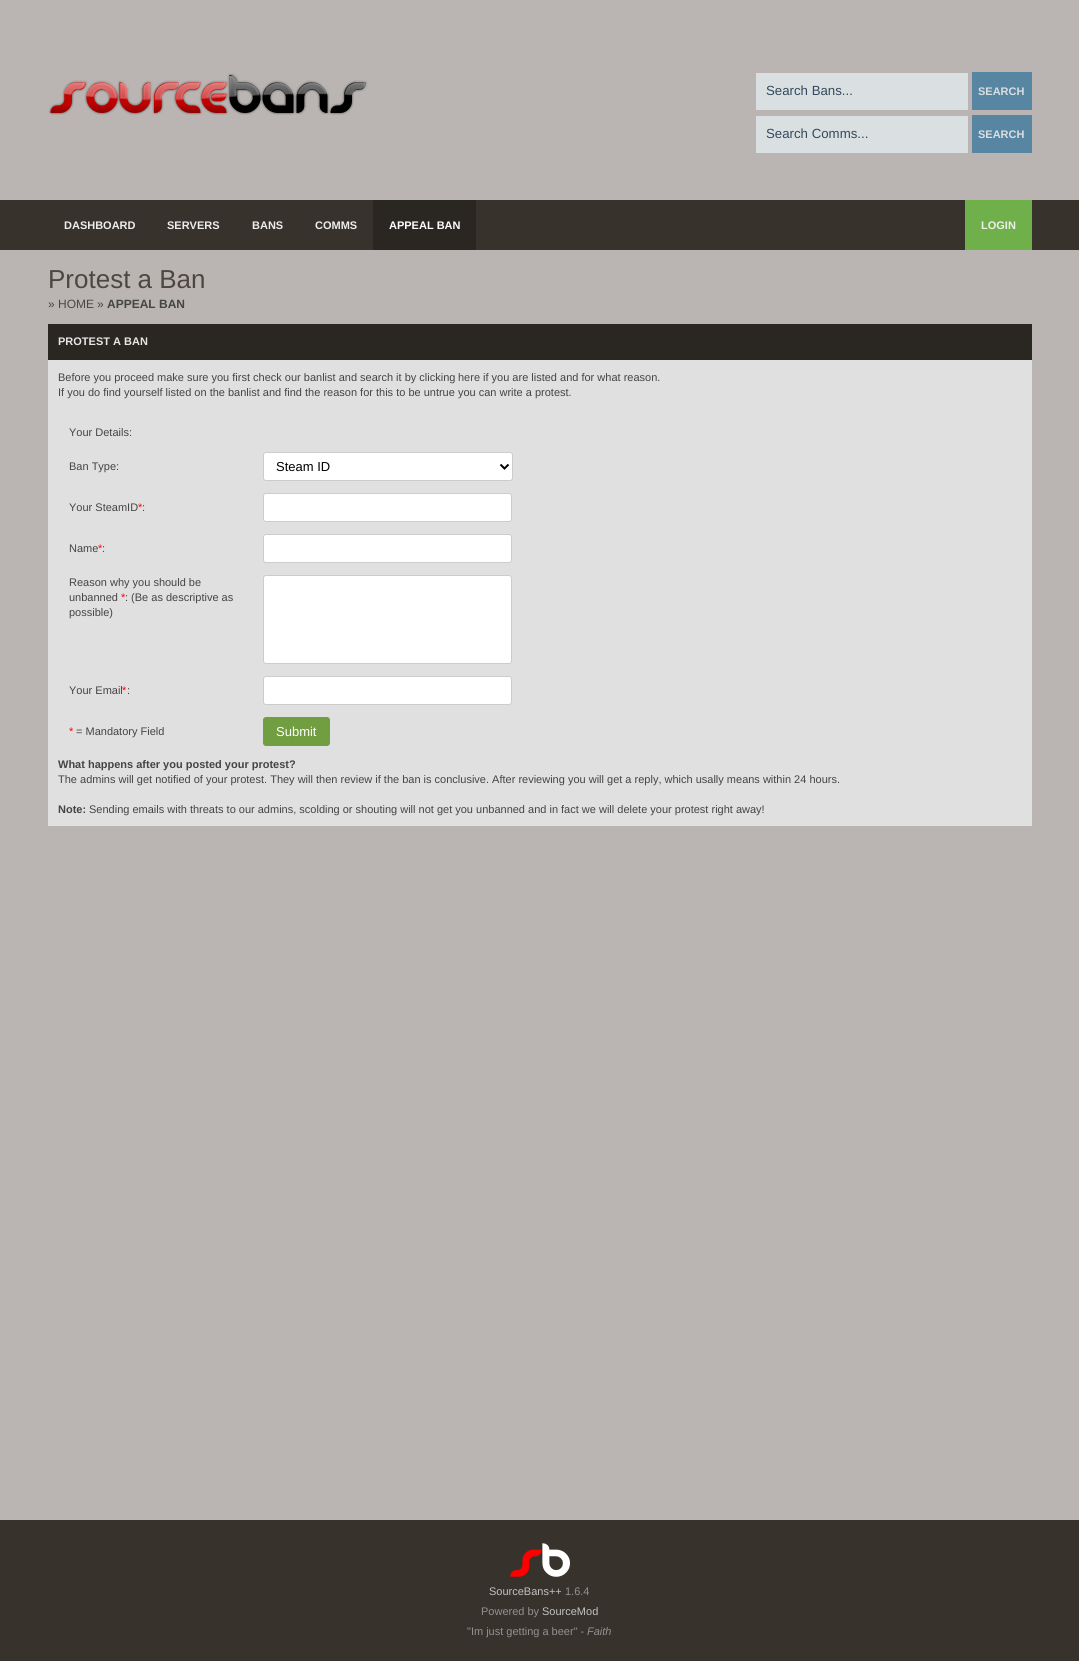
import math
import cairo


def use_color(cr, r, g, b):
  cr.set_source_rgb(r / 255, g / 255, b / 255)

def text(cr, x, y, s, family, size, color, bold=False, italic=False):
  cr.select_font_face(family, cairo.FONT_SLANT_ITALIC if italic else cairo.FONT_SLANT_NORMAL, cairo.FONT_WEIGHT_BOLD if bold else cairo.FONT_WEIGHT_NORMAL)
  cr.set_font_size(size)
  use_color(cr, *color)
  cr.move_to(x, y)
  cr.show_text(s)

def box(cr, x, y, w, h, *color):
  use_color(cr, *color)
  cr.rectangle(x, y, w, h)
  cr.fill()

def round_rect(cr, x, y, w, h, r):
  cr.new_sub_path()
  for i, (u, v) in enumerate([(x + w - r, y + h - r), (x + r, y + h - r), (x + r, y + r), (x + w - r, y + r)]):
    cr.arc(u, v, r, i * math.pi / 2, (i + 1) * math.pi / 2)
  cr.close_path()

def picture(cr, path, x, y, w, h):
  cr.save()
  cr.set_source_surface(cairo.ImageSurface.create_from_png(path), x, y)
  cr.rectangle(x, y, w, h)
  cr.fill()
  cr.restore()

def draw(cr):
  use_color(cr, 186, 181, 178)
  cr.paint()
  picture(cr, "img_01.png", 48, 73, 320, 42)
  box(cr, 756, 73, 212, 37, 218, 223, 225)
  box(cr, 972, 72, 60, 38, 88, 133, 162)
  box(cr, 756, 116, 212, 37, 218, 223, 225)
  box(cr, 972, 115, 60, 38, 88, 133, 162)
  box(cr, 48, 324, 984, 36, 42, 39, 35)
  box(cr, 48, 360, 984, 466, 224, 224, 224)
  use_color(cr, 255, 255, 255)
  round_rect(cr, 263.5, 452.5, 249, 28, 2.5)
  cr.fill_preserve()
  use_color(cr, 204, 204, 204)
  cr.set_line_width(1)
  cr.stroke()
  cr.new_path()
  cr.move_to(500.5, 464.5)
  cr.line_to(504.5, 468.5)
  cr.line_to(508.5, 464.5)
  use_color(cr, 0, 0, 0)
  cr.set_line_width(2)
  cr.stroke()
  use_color(cr, 255, 255, 255)
  round_rect(cr, 263.5, 493.5, 248, 28, 2.5)
  cr.fill_preserve()
  use_color(cr, 204, 204, 204)
  cr.set_line_width(1)
  cr.stroke()
  use_color(cr, 255, 255, 255)
  round_rect(cr, 263.5, 534.5, 248, 28, 2.5)
  cr.fill_preserve()
  use_color(cr, 204, 204, 204)
  cr.stroke()
  use_color(cr, 255, 255, 255)
  round_rect(cr, 263.5, 575.5, 248, 88, 2.5)
  cr.fill_preserve()
  use_color(cr, 204, 204, 204)
  cr.stroke()
  use_color(cr, 255, 255, 255)
  round_rect(cr, 263.5, 676.5, 248, 28, 2.5)
  cr.fill_preserve()
  use_color(cr, 204, 204, 204)
  cr.stroke()
  use_color(cr, 114, 158, 66)
  round_rect(cr, 263.5, 717.5, 66, 28, 2.5)
  cr.fill_preserve()
  cr.stroke()
  box(cr, 0, 200, 1079, 50, 56, 50, 44)
  box(cr, 373, 200, 103, 50, 42, 39, 35)
  box(cr, 965, 200, 67, 50, 112, 176, 74)
  box(cr, 0, 1520, 1079, 141, 56, 50, 44)
  picture(cr, "img_02.png", 510, 1543, 60, 34)
  text(cr, 766, 95, "Search Bans...", "Liberation Sans", 13.25, (52, 73, 94))
  text(cr, 978, 95, "SEARCH", "Liberation Sans", 11, (218, 223, 225), bold=True)
  text(cr, 766, 138, "Search Comms...", "Liberation Sans", 13.25, (52, 73, 94))
  text(cr, 978, 138, "SEARCH", "Liberation Sans", 11, (218, 223, 225), bold=True)
  text(cr, 48, 288, "Protest a Ban", "Liberation Sans", 26, (77, 71, 66))
  text(cr, 48, 308, "»", "Liberation Sans", 12, (68, 68, 68))
  text(cr, 58, 308, "HOME", "Liberation Sans", 12, (77, 71, 66))
  text(cr, 97, 308, "»", "Liberation Sans", 12, (68, 68, 68))
  text(cr, 107, 308, "APPEAL BAN", "Liberation Sans", 12, (68, 68, 68), bold=True)
  text(cr, 58, 345, "PROTEST A BAN", "Liberation Sans", 11, (230, 230, 230), bold=True)
  text(cr, 58, 381, "Before you proceed make sure you first check our banlist and search it by clicking", "Liberation Sans", 11, (68, 68, 68))
  text(cr, 458, 381, "here", "Liberation Sans", 11, (77, 71, 66))
  text(cr, 483, 381, "if you are listed and for what reason.", "Liberation Sans", 11, (68, 68, 68))
  text(cr, 58, 396, "If you do find yourself listed on the banlist and find the reason for this to be untrue you can write a protest.", "Liberation Sans", 11, (68, 68, 68))
  text(cr, 69, 436, "Your Details:", "Liberation Sans", 11, (68, 68, 68))
  text(cr, 69, 470, "Ban Type:", "Liberation Sans", 11, (68, 68, 68))
  text(cr, 276, 471, "Steam ID", "Liberation Sans", 13, (0, 0, 0))
  text(cr, 69, 511, "Your SteamID", "Liberation Sans", 11, (68, 68, 68))
  text(cr, 138, 511, "*", "Liberation Sans", 11, (255, 0, 0))
  text(cr, 142, 511, ":", "Liberation Sans", 11, (68, 68, 68))
  text(cr, 69, 552, "Name", "Liberation Sans", 11, (68, 68, 68))
  text(cr, 98, 552, "*", "Liberation Sans", 11, (255, 0, 0))
  text(cr, 102, 552, ":", "Liberation Sans", 11, (68, 68, 68))
  text(cr, 69, 586, "Reason why you should be", "Liberation Sans", 11, (68, 68, 68))
  text(cr, 69, 601, "unbanned", "Liberation Sans", 11, (68, 68, 68))
  text(cr, 121, 601, "*", "Liberation Sans", 11, (255, 0, 0))
  text(cr, 125, 601, ": (Be as descriptive as", "Liberation Sans", 11, (68, 68, 68))
  text(cr, 69, 616, "possible)", "Liberation Sans", 11, (68, 68, 68))
  text(cr, 69, 694, "Your Email", "Liberation Sans", 11, (68, 68, 68))
  text(cr, 122, 694, "*", "Liberation Sans", 11, (255, 0, 0))
  text(cr, 127, 694, ":", "Liberation Sans", 11, (68, 68, 68))
  text(cr, 69, 735, "*", "Liberation Sans", 11, (255, 0, 0))
  text(cr, 76, 735, "= Mandatory Field", "Liberation Sans", 11, (68, 68, 68))
  text(cr, 276, 736, "Submit", "Liberation Sans", 13, (255, 255, 255))
  text(cr, 58, 768, "What happens after you posted your protest?", "Liberation Sans", 11, (68, 68, 68), bold=True)
  text(cr, 58, 783, "The admins will get notified of your protest. They will then review if the ban is conclusive. After reviewing you will get a reply, which usally means within 24 hours.", "Liberation Sans", 11, (68, 68, 68))
  text(cr, 58, 813, "Note:", "Liberation Sans", 11, (68, 68, 68), bold=True)
  text(cr, 89, 813, "Sending emails with threats to our admins, scolding or shouting will not get you unbanned and in fact we will delete your protest right away!", "Liberation Sans", 11, (68, 68, 68))
  text(cr, 64, 229, "DASHBOARD", "Liberation Sans", 11, (238, 238, 238), bold=True)
  text(cr, 167, 229, "SERVERS", "Liberation Sans", 11, (238, 238, 238), bold=True)
  text(cr, 252, 229, "BANS", "Liberation Sans", 11, (238, 238, 238), bold=True)
  text(cr, 315, 229, "COMMS", "Liberation Sans", 11, (238, 238, 238), bold=True)
  text(cr, 389, 229, "APPEAL BAN", "Liberation Sans", 11, (255, 255, 255), bold=True)
  text(cr, 981, 229, "LOGIN", "Liberation Sans", 11, (238, 238, 238), bold=True)
  text(cr, 489, 1595, "SourceBans++", "Liberation Sans", 11, (193, 193, 193))
  text(cr, 565, 1595, "1.6.4", "Liberation Sans", 11, (145, 145, 145))
  text(cr, 481, 1615, "Powered by", "Liberation Sans", 11, (145, 145, 145))
  text(cr, 542, 1615, "SourceMod", "Liberation Sans", 11, (193, 193, 193))
  text(cr, 467, 1635, "\"Im just getting a beer\" -", "Liberation Sans", 11, (145, 145, 145))
  text(cr, 587, 1635, "Faith", "Liberation Sans", 11, (145, 145, 145), italic=True)


surface = cairo.ImageSurface(cairo.FORMAT_RGB24, 1079, 1661)
cr = cairo.Context(surface)
options = cairo.FontOptions()
options.set_hint_metrics(cairo.HINT_METRICS_OFF)
options.set_hint_style(cairo.HINT_STYLE_NONE)
cr.set_font_options(options)
cr.set_miter_limit(4)
draw(cr)
surface.write_to_png("out.png")
